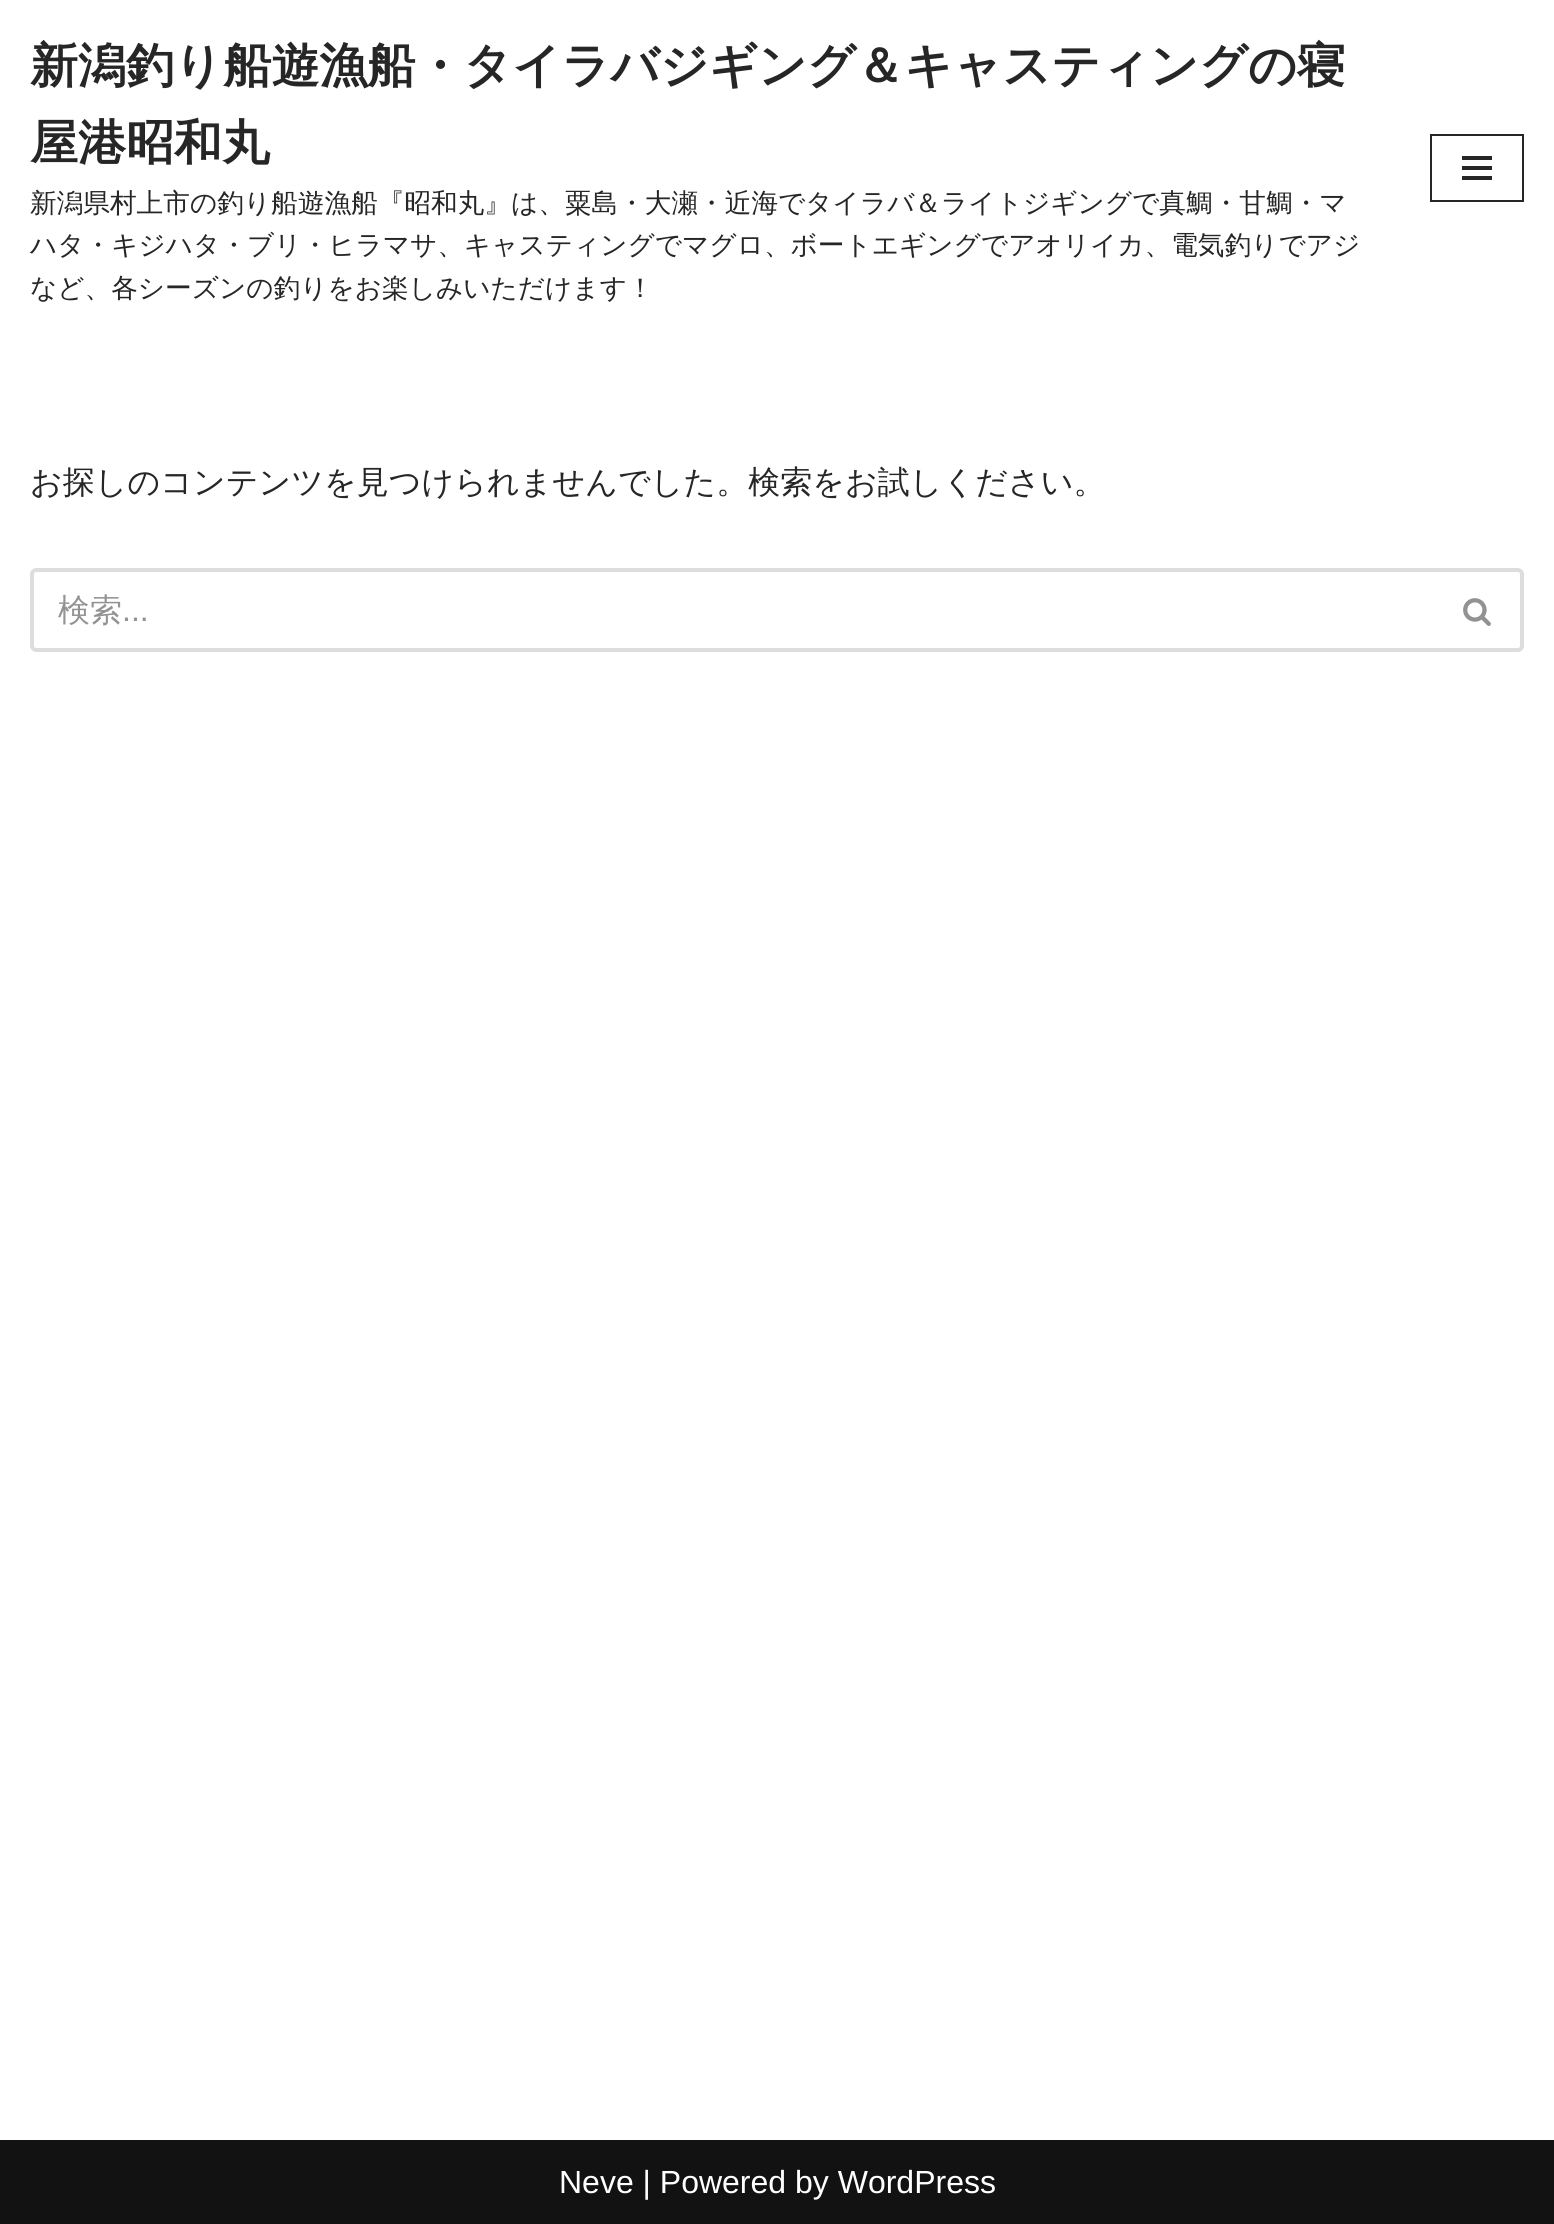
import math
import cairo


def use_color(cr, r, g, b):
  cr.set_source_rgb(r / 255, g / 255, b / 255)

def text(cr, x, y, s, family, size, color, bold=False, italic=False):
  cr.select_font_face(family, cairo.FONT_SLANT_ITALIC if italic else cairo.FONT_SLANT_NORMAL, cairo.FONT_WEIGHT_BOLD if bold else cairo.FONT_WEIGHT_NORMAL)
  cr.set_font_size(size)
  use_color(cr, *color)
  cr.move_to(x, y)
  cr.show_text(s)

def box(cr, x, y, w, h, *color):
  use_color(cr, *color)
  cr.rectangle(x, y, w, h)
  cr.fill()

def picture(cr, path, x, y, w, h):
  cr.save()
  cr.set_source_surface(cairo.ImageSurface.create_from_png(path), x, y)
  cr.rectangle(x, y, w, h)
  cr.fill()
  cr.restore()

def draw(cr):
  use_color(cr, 255, 255, 255)
  cr.paint()
  cr.rectangle(1431, 135, 92, 66)
  use_color(cr, 39, 38, 38)
  cr.stroke()
  box(cr, 1462, 156, 30, 4, 39, 38, 38)
  box(cr, 1462, 166, 30, 4, 39, 38, 38)
  box(cr, 1462, 176, 30, 4, 39, 38, 38)
  use_color(cr, 221, 221, 221)
  cr.set_fill_rule(cairo.FILL_RULE_EVEN_ODD)
  cr.new_path()
  cr.move_to(36, 568)
  cr.line_to(1434, 568)
  cr.line_to(1434, 652)
  cr.line_to(36, 652)
  cr.curve_to(33, 652, 30, 649, 30, 646)
  cr.line_to(30, 574)
  cr.curve_to(30, 571, 33, 568, 36, 568)
  cr.close_path()
  cr.move_to(36, 572)
  cr.line_to(1434, 572)
  cr.line_to(1434, 648)
  cr.line_to(36, 648)
  cr.curve_to(35, 648, 34, 647, 34, 646)
  cr.line_to(34, 574)
  cr.curve_to(34, 573, 35, 572, 36, 572)
  cr.close_path()
  cr.fill()
  cr.new_path()
  cr.move_to(1434, 568)
  cr.line_to(1518, 568)
  cr.curve_to(1521, 568, 1524, 571, 1524, 574)
  cr.line_to(1524, 646)
  cr.curve_to(1524, 649, 1521, 652, 1518, 652)
  cr.line_to(1434, 652)
  cr.close_path()
  cr.move_to(1434, 572)
  cr.line_to(1518, 572)
  cr.curve_to(1519, 572, 1520, 573, 1520, 574)
  cr.line_to(1520, 646)
  cr.curve_to(1520, 647, 1519, 648, 1518, 648)
  cr.line_to(1434, 648)
  cr.close_path()
  cr.fill()
  picture(cr, "img_01.png", 1463, 598, 28, 28)
  box(cr, 0, 2140, 1554, 84, 18, 18, 18)
  text(cr, 30, 82, "新潟釣り船遊漁船・タイラバジギング＆キャスティングの寝", "WenQuanYi Zen Hei", 48, (39, 38, 38), bold=True)
  text(cr, 30, 159, "屋港昭和丸", "WenQuanYi Zen Hei", 48, (39, 38, 38), bold=True)
  text(cr, 30, 212, "新潟県村上市の釣り船遊漁船『昭和丸』は、粟島・大瀬・近海でタイラバ＆ライトジギングで真鯛・甘鯛・マ", "WenQuanYi Zen Hei Medium", 26.65, (39, 38, 38))
  text(cr, 30, 254, "ハタ・キジハタ・ブリ・ヒラマサ、キャスティングでマグロ、ボートエギングでアオリイカ、電気釣りでアジ", "WenQuanYi Zen Hei Medium", 26.65, (39, 38, 38))
  text(cr, 30, 297, "など、各シーズンの釣りをお楽しみいただけます！", "WenQuanYi Zen Hei Medium", 26.65, (39, 38, 38))
  text(cr, 30, 493, "お探しのコンテンツを見つけられませんでした。検索をお試しください。", "WenQuanYi Zen Hei Medium", 32, (39, 38, 38))
  text(cr, 58, 621, "検索", "WenQuanYi Zen Hei Medium", 32, (147, 147, 147))
  text(cr, 122, 621, "...", "Liberation Sans", 32, (147, 147, 147))
  text(cr, 559, 2193, "Neve | Powered by WordPress", "Liberation Sans", 32, (255, 255, 255))


surface = cairo.ImageSurface(cairo.FORMAT_RGB24, 1554, 2224)
cr = cairo.Context(surface)
options = cairo.FontOptions()
options.set_hint_metrics(cairo.HINT_METRICS_OFF)
options.set_hint_style(cairo.HINT_STYLE_NONE)
cr.set_font_options(options)
cr.set_miter_limit(4)
draw(cr)
surface.write_to_png("out.png")
